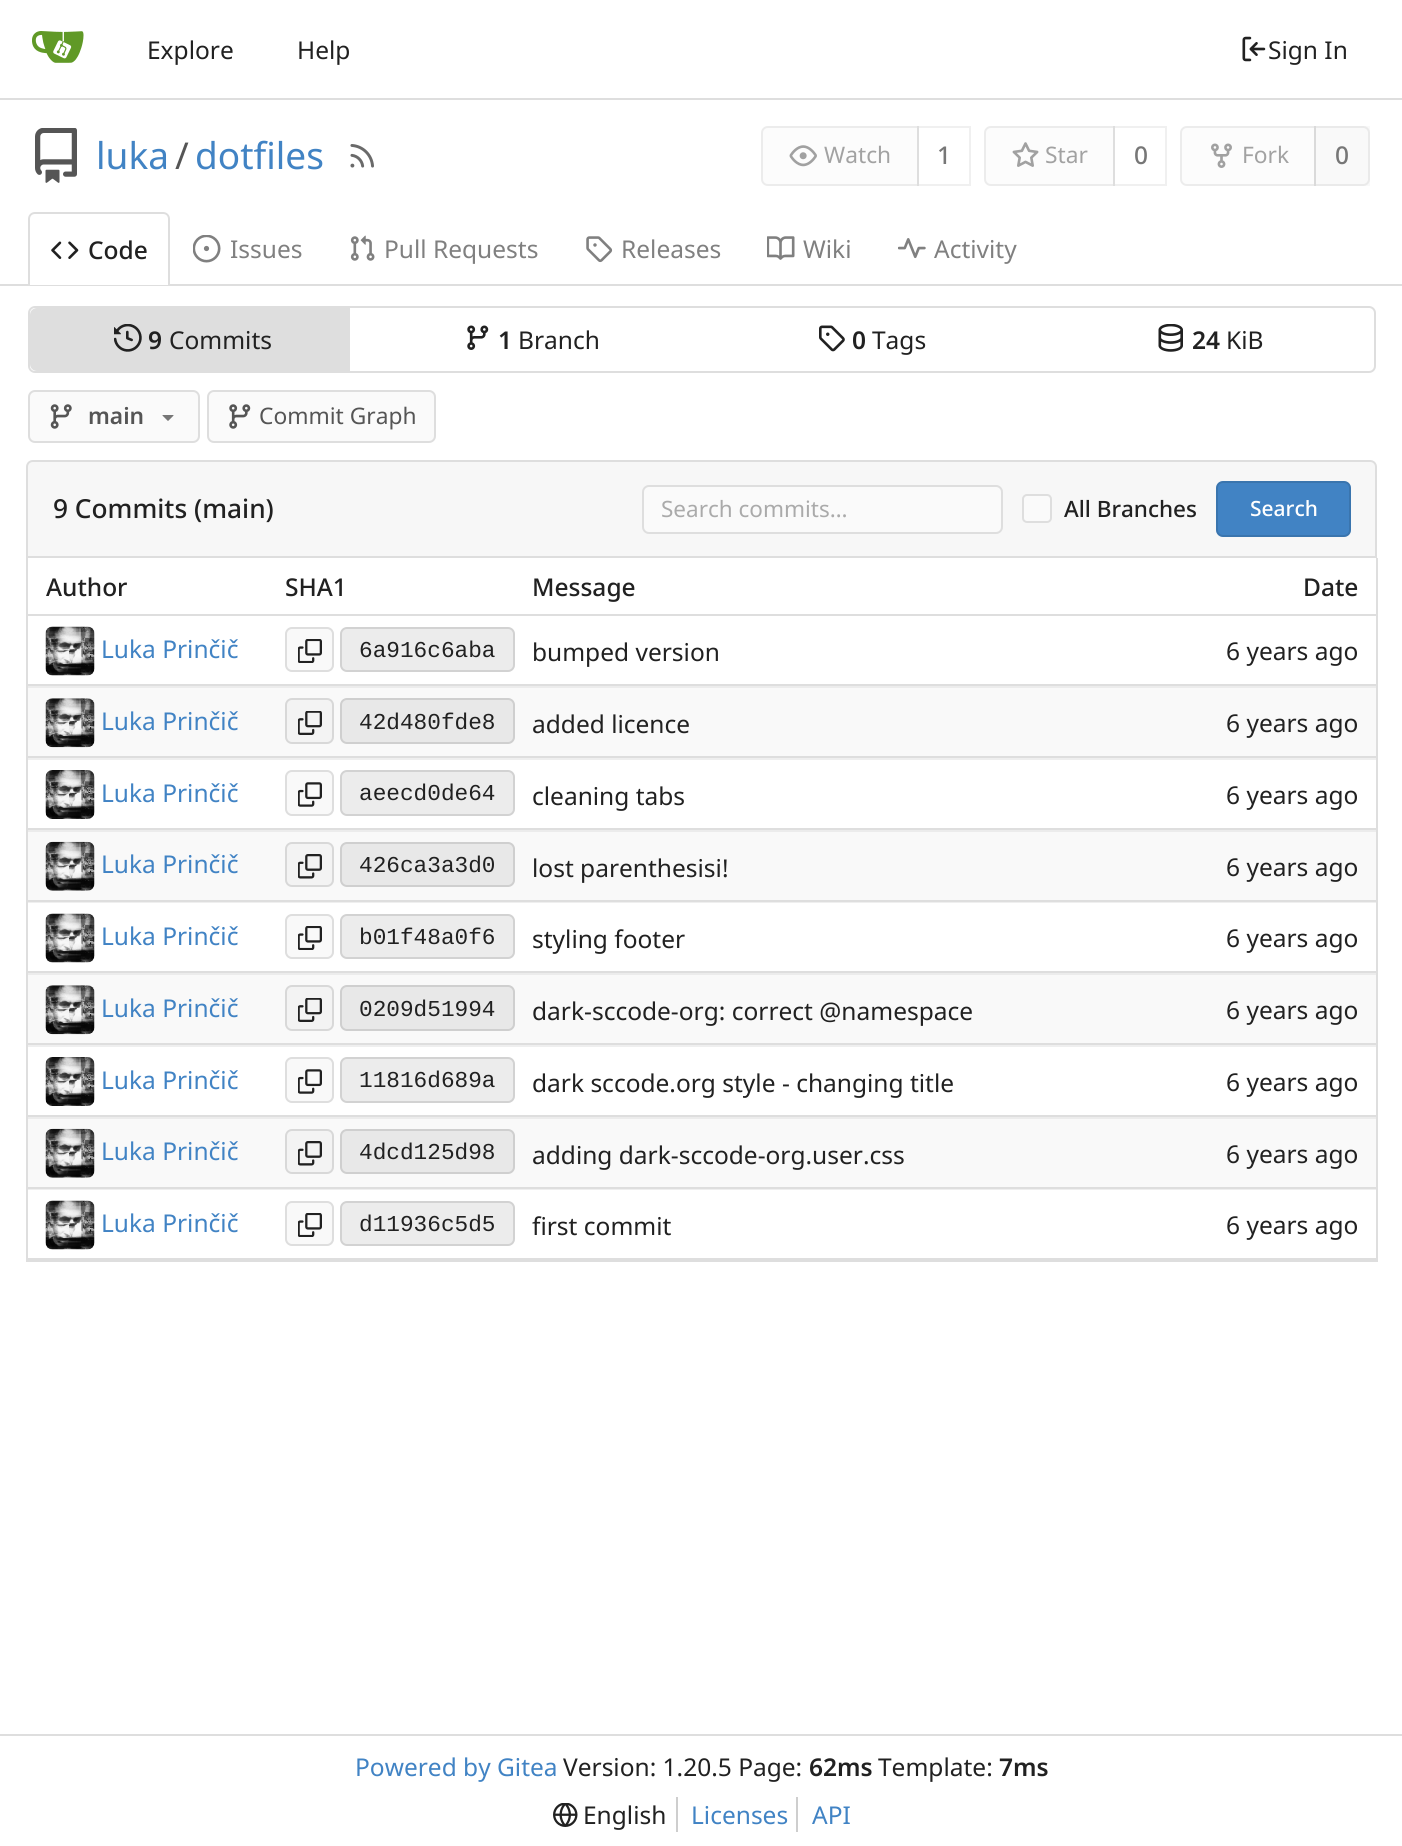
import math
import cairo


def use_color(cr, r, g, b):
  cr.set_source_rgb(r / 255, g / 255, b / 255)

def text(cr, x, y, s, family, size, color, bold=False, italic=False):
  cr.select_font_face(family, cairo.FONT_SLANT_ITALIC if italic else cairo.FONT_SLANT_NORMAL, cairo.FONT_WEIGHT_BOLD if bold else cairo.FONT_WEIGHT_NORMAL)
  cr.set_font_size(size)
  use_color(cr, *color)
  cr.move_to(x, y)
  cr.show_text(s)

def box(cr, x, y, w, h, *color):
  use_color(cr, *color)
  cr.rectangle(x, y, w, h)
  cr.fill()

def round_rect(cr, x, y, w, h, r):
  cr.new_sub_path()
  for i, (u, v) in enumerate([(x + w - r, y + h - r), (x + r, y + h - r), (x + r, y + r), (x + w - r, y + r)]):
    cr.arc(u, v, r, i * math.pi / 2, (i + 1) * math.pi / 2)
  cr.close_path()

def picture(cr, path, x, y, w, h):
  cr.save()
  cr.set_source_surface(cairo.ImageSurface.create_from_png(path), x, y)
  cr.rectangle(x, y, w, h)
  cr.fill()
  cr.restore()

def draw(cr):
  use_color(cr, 255, 255, 255)
  cr.paint()
  box(cr, 28, 1189, 1348, 1, 239, 239, 239)
  box(cr, 28, 902, 1348, 1, 239, 239, 239)
  box(cr, 0, 98, 1402, 2, 222, 222, 222)
  picture(cr, "img_01.png", 32, 31, 52, 32)
  picture(cr, "img_02.png", 1242, 36, 24, 26)
  picture(cr, "img_03.png", 35, 128, 42, 55)
  picture(cr, "img_04.png", 350, 144, 24, 24)
  use_color(cr, 252, 252, 252)
  cr.new_path()
  cr.move_to(768, 127)
  cr.line_to(918, 127)
  cr.line_to(918, 185)
  cr.line_to(768, 185)
  cr.curve_to(764.5, 185, 762, 182.5, 762, 179)
  cr.line_to(762, 133)
  cr.curve_to(762, 129.5, 764.5, 127, 768, 127)
  cr.close_path()
  cr.fill_preserve()
  use_color(cr, 236, 236, 236)
  cr.stroke()
  picture(cr, "img_05.png", 789, 145, 28, 22)
  cr.rectangle(918, 127, 52, 58)
  cr.set_source_rgba(0, 0, 0, 0.06)
  cr.stroke()
  use_color(cr, 252, 252, 252)
  cr.new_path()
  cr.move_to(991, 127)
  cr.line_to(1114, 127)
  cr.line_to(1114, 185)
  cr.line_to(991, 185)
  cr.curve_to(987.5, 185, 985, 182.5, 985, 179)
  cr.line_to(985, 133)
  cr.curve_to(985, 129.5, 987.5, 127, 991, 127)
  cr.close_path()
  cr.fill_preserve()
  use_color(cr, 236, 236, 236)
  cr.stroke()
  picture(cr, "img_06.png", 1012, 142, 27, 25)
  cr.rectangle(1114, 127, 52, 58)
  cr.set_source_rgba(0, 0, 0, 0.06)
  cr.stroke()
  use_color(cr, 252, 252, 252)
  cr.new_path()
  cr.move_to(1187, 127)
  cr.line_to(1315, 127)
  cr.line_to(1315, 185)
  cr.line_to(1187, 185)
  cr.curve_to(1183.5, 185, 1181, 182.5, 1181, 179)
  cr.line_to(1181, 133)
  cr.curve_to(1181, 129.5, 1183.5, 127, 1187, 127)
  cr.close_path()
  cr.fill_preserve()
  use_color(cr, 236, 236, 236)
  cr.stroke()
  picture(cr, "img_07.png", 1211, 143, 21, 25)
  cr.set_source_rgba(0.451, 0.451, 0.451, 0.04)
  cr.rectangle(1314, 126, 56, 60)
  cr.fill()
  cr.new_path()
  cr.move_to(1315, 127)
  cr.line_to(1363, 127)
  cr.curve_to(1366.5, 127, 1369, 129.5, 1369, 133)
  cr.line_to(1369, 179)
  cr.curve_to(1369, 182.5, 1366.5, 185, 1363, 185)
  cr.line_to(1315, 185)
  cr.close_path()
  cr.set_source_rgba(0.451, 0.451, 0.451, 0.11)
  cr.stroke()
  box(cr, 0, 284, 1402, 2, 222, 222, 222)
  use_color(cr, 255, 255, 255)
  cr.new_path()
  cr.move_to(35, 212)
  cr.line_to(163, 212)
  cr.curve_to(167, 212, 170, 215, 170, 219)
  cr.line_to(170, 285)
  cr.line_to(28, 285)
  cr.line_to(28, 219)
  cr.curve_to(28, 215, 31, 212, 35, 212)
  cr.close_path()
  cr.fill()
  cr.save()
  cr.rectangle(28, 210, 1348, 75)
  cr.clip()
  use_color(cr, 222, 222, 222)
  cr.set_fill_rule(cairo.FILL_RULE_EVEN_ODD)
  cr.new_path()
  cr.move_to(35, 212)
  cr.line_to(163, 212)
  cr.curve_to(167, 212, 170, 215, 170, 219)
  cr.line_to(170, 287)
  cr.line_to(28, 287)
  cr.line_to(28, 219)
  cr.curve_to(28, 215, 31, 212, 35, 212)
  cr.close_path()
  cr.move_to(35, 214)
  cr.line_to(163, 214)
  cr.curve_to(166, 214, 168, 216, 168, 219)
  cr.line_to(168, 287)
  cr.line_to(30, 287)
  cr.line_to(30, 219)
  cr.curve_to(30, 216, 32, 214, 35, 214)
  cr.close_path()
  cr.fill()
  cr.restore()
  picture(cr, "img_08.png", 51, 241, 28, 18)
  picture(cr, "img_09.png", 193, 235, 28, 28)
  picture(cr, "img_10.png", 350, 235, 25, 26)
  picture(cr, "img_11.png", 586, 236, 27, 27)
  picture(cr, "img_12.png", 767, 236, 28, 24)
  picture(cr, "img_13.png", 898, 238, 28, 21)
  round_rect(cr, 29, 307, 1346, 65, 6)
  use_color(cr, 222, 222, 222)
  cr.stroke()
  cr.new_path()
  cr.move_to(37, 308)
  cr.line_to(350, 308)
  cr.line_to(350, 371)
  cr.line_to(37, 371)
  cr.curve_to(33, 371, 30, 368, 30, 364)
  cr.line_to(30, 315)
  cr.curve_to(30, 311, 33, 308, 37, 308)
  cr.close_path()
  cr.fill()
  picture(cr, "img_14.png", 114, 324, 28, 28)
  picture(cr, "img_15.png", 467, 325, 22, 25)
  picture(cr, "img_16.png", 819, 325, 26, 27)
  picture(cr, "img_17.png", 1158, 324, 25, 28)
  use_color(cr, 250, 250, 250)
  round_rect(cr, 29, 391, 170, 51, 6)
  cr.fill_preserve()
  use_color(cr, 222, 222, 222)
  cr.stroke()
  picture(cr, "img_18.png", 50, 404, 22, 25)
  picture(cr, "img_19.png", 162, 415, 12, 6)
  use_color(cr, 250, 250, 250)
  round_rect(cr, 208, 391, 227, 51, 6)
  cr.fill_preserve()
  use_color(cr, 222, 222, 222)
  cr.stroke()
  picture(cr, "img_20.png", 229, 404, 22, 25)
  use_color(cr, 247, 247, 247)
  cr.new_path()
  cr.move_to(33, 461)
  cr.line_to(1370, 461)
  cr.curve_to(1373.5, 461, 1376, 463.5, 1376, 467)
  cr.line_to(1376, 557)
  cr.line_to(27, 557)
  cr.line_to(27, 467)
  cr.curve_to(27, 463.5, 29.5, 461, 33, 461)
  cr.close_path()
  cr.fill_preserve()
  use_color(cr, 222, 222, 222)
  cr.stroke()
  use_color(cr, 250, 250, 250)
  round_rect(cr, 643, 486, 359, 47, 6)
  cr.fill_preserve()
  use_color(cr, 222, 222, 222)
  cr.stroke()
  use_color(cr, 250, 250, 250)
  round_rect(cr, 1023, 495, 28, 27, 4)
  cr.fill_preserve()
  use_color(cr, 222, 222, 222)
  cr.stroke()
  use_color(cr, 65, 131, 196)
  round_rect(cr, 1216, 481, 135, 56, 7)
  cr.fill()
  round_rect(cr, 1217, 482, 133, 54, 6)
  cr.set_source_rgba(0, 0, 0, 0.11)
  cr.stroke()
  box(cr, 1376, 558, 2, 704, 222, 222, 222)
  box(cr, 26, 1260, 1351, 2, 222, 222, 222)
  box(cr, 26, 558, 2, 704, 222, 222, 222)
  box(cr, 28, 614, 1348, 2, 222, 222, 222)
  box(cr, 28, 684, 1348, 2, 222, 222, 222)
  picture(cr, "img_21.png", 45, 626, 50, 50)
  use_color(cr, 249, 249, 249)
  round_rect(cr, 285, 627, 49, 45, 7)
  cr.fill()
  round_rect(cr, 286, 628, 47, 43, 6)
  cr.set_source_rgba(0, 0, 0, 0.11)
  cr.stroke()
  picture(cr, "img_22.png", 298, 639, 24, 24)
  use_color(cr, 236, 236, 236)
  round_rect(cr, 340, 627, 175, 45, 7)
  cr.fill()
  round_rect(cr, 341, 628, 173, 43, 6)
  cr.set_source_rgba(0, 0, 0, 0.11)
  cr.stroke()
  box(cr, 28, 688, 1348, 68, 249, 249, 249)
  box(cr, 28, 756, 1348, 2, 222, 222, 222)
  box(cr, 28, 686, 1348, 2, 236, 236, 236)
  picture(cr, "img_23.png", 45, 698, 50, 50)
  use_color(cr, 243, 243, 243)
  round_rect(cr, 285, 698, 49, 46, 7)
  cr.fill()
  round_rect(cr, 286, 699, 47, 44, 6)
  cr.set_source_rgba(0, 0, 0, 0.11)
  cr.stroke()
  picture(cr, "img_24.png", 298, 711, 24, 24)
  use_color(cr, 232, 232, 232)
  round_rect(cr, 340, 698, 175, 46, 7)
  cr.fill()
  round_rect(cr, 341, 699, 173, 44, 6)
  cr.set_source_rgba(0, 0, 0, 0.11)
  cr.stroke()
  box(cr, 28, 828, 1348, 2, 222, 222, 222)
  box(cr, 28, 758, 1348, 2, 239, 239, 239)
  picture(cr, "img_25.png", 45, 770, 50, 49)
  use_color(cr, 249, 249, 249)
  round_rect(cr, 285, 770, 49, 46, 7)
  cr.fill()
  round_rect(cr, 286, 771, 47, 44, 6)
  cr.set_source_rgba(0, 0, 0, 0.11)
  cr.stroke()
  picture(cr, "img_26.png", 298, 782, 24, 25)
  use_color(cr, 236, 236, 236)
  round_rect(cr, 340, 770, 175, 46, 7)
  cr.fill()
  round_rect(cr, 341, 771, 173, 44, 6)
  cr.set_source_rgba(0, 0, 0, 0.11)
  cr.stroke()
  box(cr, 28, 832, 1348, 68, 249, 249, 249)
  box(cr, 28, 900, 1348, 1, 222, 222, 222)
  box(cr, 28, 901, 1348, 1, 222, 222, 222)
  box(cr, 28, 830, 1348, 2, 236, 236, 236)
  picture(cr, "img_27.png", 45, 841, 50, 50)
  use_color(cr, 243, 243, 243)
  round_rect(cr, 285, 842, 49, 45, 7)
  cr.fill()
  round_rect(cr, 286, 843, 47, 43, 6)
  cr.set_source_rgba(0, 0, 0, 0.11)
  cr.stroke()
  picture(cr, "img_28.png", 298, 854, 24, 25)
  use_color(cr, 232, 232, 232)
  round_rect(cr, 340, 842, 175, 45, 7)
  cr.fill()
  round_rect(cr, 341, 843, 173, 43, 6)
  cr.set_source_rgba(0, 0, 0, 0.11)
  cr.stroke()
  box(cr, 28, 971, 1348, 2, 222, 222, 222)
  picture(cr, "img_21.png", 45, 913, 50, 50)
  use_color(cr, 249, 249, 249)
  round_rect(cr, 285, 914, 49, 45, 7)
  cr.fill()
  round_rect(cr, 286, 915, 47, 43, 6)
  cr.set_source_rgba(0, 0, 0, 0.11)
  cr.stroke()
  picture(cr, "img_22.png", 298, 926, 24, 24)
  use_color(cr, 236, 236, 236)
  round_rect(cr, 340, 914, 175, 45, 7)
  cr.fill()
  round_rect(cr, 341, 915, 173, 43, 6)
  cr.set_source_rgba(0, 0, 0, 0.11)
  cr.stroke()
  box(cr, 28, 975, 1348, 68, 249, 249, 249)
  box(cr, 28, 1043, 1348, 2, 222, 222, 222)
  box(cr, 28, 973, 1348, 2, 236, 236, 236)
  picture(cr, "img_29.png", 45, 985, 50, 50)
  use_color(cr, 243, 243, 243)
  round_rect(cr, 285, 985, 49, 46, 7)
  cr.fill()
  round_rect(cr, 286, 986, 47, 44, 6)
  cr.set_source_rgba(0, 0, 0, 0.11)
  cr.stroke()
  picture(cr, "img_24.png", 298, 998, 24, 24)
  use_color(cr, 232, 232, 232)
  round_rect(cr, 340, 985, 175, 46, 7)
  cr.fill()
  round_rect(cr, 341, 986, 173, 44, 6)
  cr.set_source_rgba(0, 0, 0, 0.11)
  cr.stroke()
  box(cr, 28, 1115, 1348, 2, 222, 222, 222)
  box(cr, 28, 1045, 1348, 2, 239, 239, 239)
  picture(cr, "img_25.png", 45, 1057, 50, 49)
  use_color(cr, 249, 249, 249)
  round_rect(cr, 285, 1057, 49, 46, 7)
  cr.fill()
  round_rect(cr, 286, 1058, 47, 44, 6)
  cr.set_source_rgba(0, 0, 0, 0.11)
  cr.stroke()
  picture(cr, "img_26.png", 298, 1069, 24, 25)
  use_color(cr, 236, 236, 236)
  round_rect(cr, 340, 1057, 175, 46, 7)
  cr.fill()
  round_rect(cr, 341, 1058, 173, 44, 6)
  cr.set_source_rgba(0, 0, 0, 0.11)
  cr.stroke()
  box(cr, 28, 1119, 1348, 68, 249, 249, 249)
  box(cr, 28, 1187, 1348, 1, 222, 222, 222)
  box(cr, 28, 1188, 1348, 1, 222, 222, 222)
  box(cr, 28, 1117, 1348, 2, 236, 236, 236)
  picture(cr, "img_27.png", 45, 1128, 50, 50)
  use_color(cr, 243, 243, 243)
  round_rect(cr, 285, 1129, 49, 45, 7)
  cr.fill()
  round_rect(cr, 286, 1130, 47, 43, 6)
  cr.set_source_rgba(0, 0, 0, 0.11)
  cr.stroke()
  picture(cr, "img_28.png", 298, 1141, 24, 25)
  use_color(cr, 232, 232, 232)
  round_rect(cr, 340, 1129, 175, 45, 7)
  cr.fill()
  round_rect(cr, 341, 1130, 173, 43, 6)
  cr.set_source_rgba(0, 0, 0, 0.11)
  cr.stroke()
  box(cr, 28, 1258, 1348, 2, 222, 222, 222)
  picture(cr, "img_21.png", 45, 1200, 50, 50)
  use_color(cr, 249, 249, 249)
  round_rect(cr, 285, 1201, 49, 45, 7)
  cr.fill()
  round_rect(cr, 286, 1202, 47, 43, 6)
  cr.set_source_rgba(0, 0, 0, 0.11)
  cr.stroke()
  picture(cr, "img_22.png", 298, 1213, 24, 24)
  use_color(cr, 236, 236, 236)
  round_rect(cr, 340, 1201, 175, 45, 7)
  cr.fill()
  round_rect(cr, 341, 1202, 173, 43, 6)
  cr.set_source_rgba(0, 0, 0, 0.11)
  cr.stroke()
  box(cr, 0, 1734, 1402, 2, 222, 222, 222)
  picture(cr, "img_30.png", 553, 1803, 25, 24)
  box(cr, 676, 1797, 2, 35, 206, 206, 206)
  box(cr, 796, 1797, 2, 35, 206, 206, 206)
  text(cr, 147, 59, "Explore", "Noto Sans", 24.5, (33, 33, 33))
  text(cr, 297, 59, "Help", "Noto Sans", 24.5, (33, 33, 33))
  text(cr, 1268, 59, "Sign In", "Noto Sans", 24.5, (33, 33, 33))
  text(cr, 96, 169, "luka", "Noto Sans", 37, (65, 131, 196))
  text(cr, 175, 169, "/", "Noto Sans", 37, (85, 85, 85))
  text(cr, 195, 169, "dotfiles", "Noto Sans", 37, (65, 131, 196))
  text(cr, 824, 163, "Watch", "Noto Sans", 22.75, (162, 162, 162))
  text(cr, 937, 164, "1", "Noto Sans Medium", 24.5, (119, 119, 119))
  text(cr, 1045, 163, "Star", "Noto Sans", 22.75, (162, 162, 162))
  text(cr, 1134, 164, "0", "Noto Sans Medium", 24.5, (119, 119, 119))
  text(cr, 1242, 163, "Fork", "Noto Sans", 22.75, (162, 162, 162))
  text(cr, 1335, 164, "0", "Noto Sans Medium", 24.5, (119, 119, 119))
  text(cr, 88, 259, "Code", "Noto Sans Medium", 24.5, (33, 33, 33))
  text(cr, 230, 258, "Issues", "Noto Sans", 24.5, (128, 128, 128))
  text(cr, 384, 258, "Pull Requests", "Noto Sans", 24.5, (128, 128, 128))
  text(cr, 621, 258, "Releases", "Noto Sans", 24.5, (128, 128, 128))
  text(cr, 803, 258, "Wiki", "Noto Sans", 24.5, (128, 128, 128))
  text(cr, 934, 258, "Activity", "Noto Sans", 24.5, (128, 128, 128))
  text(cr, 148, 349, "9", "Noto Sans SemiBold", 24.5, (33, 33, 33))
  text(cr, 169, 349, "Commits", "Noto Sans", 24.5, (33, 33, 33))
  text(cr, 498, 349, "1", "Noto Sans SemiBold", 24.5, (33, 33, 33))
  text(cr, 518, 349, "Branch", "Noto Sans", 24.5, (33, 33, 33))
  text(cr, 852, 349, "0", "Noto Sans SemiBold", 24.5, (33, 33, 33))
  text(cr, 872, 349, "Tags", "Noto Sans", 24.5, (33, 33, 33))
  text(cr, 1192, 349, "24", "Noto Sans SemiBold", 24.5, (33, 33, 33))
  text(cr, 1226, 349, "KiB", "Noto Sans", 24.5, (33, 33, 33))
  text(cr, 88, 424, "main", "Noto Sans SemiBold", 22.75, (85, 85, 85))
  text(cr, 259, 424, "Commit Graph", "Noto Sans", 22.75, (85, 85, 85))
  text(cr, 53, 518, "9 Commits (main)", "Noto Sans Medium", 26.25, (33, 33, 33))
  text(cr, 661, 517, "Search commits…", "Noto Sans", 22.5, (170, 170, 170))
  text(cr, 1064, 517, "All Branches", "Noto Sans Medium", 22.5, (33, 33, 33))
  text(cr, 1250, 516, "Search", "Noto Sans Medium", 21, (255, 255, 255))
  text(cr, 46, 596, "Author", "Noto Sans Medium", 24.5, (33, 33, 33))
  text(cr, 285, 596, "SHA1", "Noto Sans Medium", 24.5, (33, 33, 33))
  text(cr, 532, 596, "Message", "Noto Sans Medium", 24.5, (33, 33, 33))
  text(cr, 1303, 596, "Date", "Noto Sans Medium", 24.5, (33, 33, 33))
  text(cr, 101, 658, "Luka Prinčič", "Noto Sans", 24.5, (65, 131, 196))
  text(cr, 359, 657, "6a916c6aba", "Liberation Mono", 22.75, (33, 33, 33))
  text(cr, 532, 661, "bumped version", "Noto Sans", 24.5, (33, 33, 33))
  text(cr, 1226, 660, "6 years ago", "Noto Sans", 24.5, (33, 33, 33))
  text(cr, 101, 730, "Luka Prinčič", "Noto Sans", 24.5, (65, 131, 196))
  text(cr, 359, 729, "42d480fde8", "Liberation Mono", 22.75, (33, 33, 33))
  text(cr, 532, 733, "added licence", "Noto Sans", 24.5, (33, 33, 33))
  text(cr, 1226, 732, "6 years ago", "Noto Sans", 24.5, (33, 33, 33))
  text(cr, 101, 802, "Luka Prinčič", "Noto Sans", 24.5, (65, 131, 196))
  text(cr, 359, 800, "aeecd0de64", "Liberation Mono", 22.75, (33, 33, 33))
  text(cr, 532, 805, "cleaning tabs", "Noto Sans", 24.5, (33, 33, 33))
  text(cr, 1226, 804, "6 years ago", "Noto Sans", 24.5, (33, 33, 33))
  text(cr, 101, 873, "Luka Prinčič", "Noto Sans", 24.5, (65, 131, 196))
  text(cr, 359, 872, "426ca3a3d0", "Liberation Mono", 22.75, (33, 33, 33))
  text(cr, 532, 877, "lost parenthesisi!", "Noto Sans", 24.5, (33, 33, 33))
  text(cr, 1226, 876, "6 years ago", "Noto Sans", 24.5, (33, 33, 33))
  text(cr, 101, 945, "Luka Prinčič", "Noto Sans", 24.5, (65, 131, 196))
  text(cr, 359, 944, "b01f48a0f6", "Liberation Mono", 22.75, (33, 33, 33))
  text(cr, 532, 948, "styling footer", "Noto Sans", 24.5, (33, 33, 33))
  text(cr, 1226, 947, "6 years ago", "Noto Sans", 24.5, (33, 33, 33))
  text(cr, 101, 1017, "Luka Prinčič", "Noto Sans", 24.5, (65, 131, 196))
  text(cr, 359, 1016, "0209d51994", "Liberation Mono", 22.75, (33, 33, 33))
  text(cr, 532, 1020, "dark-sccode-org: correct @namespace", "Noto Sans", 24.5, (33, 33, 33))
  text(cr, 1226, 1019, "6 years ago", "Noto Sans", 24.5, (33, 33, 33))
  text(cr, 101, 1089, "Luka Prinčič", "Noto Sans", 24.5, (65, 131, 196))
  text(cr, 359, 1087, "11816d689a", "Liberation Mono", 22.75, (33, 33, 33))
  text(cr, 532, 1092, "dark sccode.org style - changing title", "Noto Sans", 24.5, (33, 33, 33))
  text(cr, 1226, 1091, "6 years ago", "Noto Sans", 24.5, (33, 33, 33))
  text(cr, 101, 1160, "Luka Prinčič", "Noto Sans", 24.5, (65, 131, 196))
  text(cr, 359, 1159, "4dcd125d98", "Liberation Mono", 22.75, (33, 33, 33))
  text(cr, 532, 1164, "adding dark-sccode-org.user.css", "Noto Sans", 24.5, (33, 33, 33))
  text(cr, 1226, 1163, "6 years ago", "Noto Sans", 24.5, (33, 33, 33))
  text(cr, 101, 1232, "Luka Prinčič", "Noto Sans", 24.5, (65, 131, 196))
  text(cr, 359, 1231, "d11936c5d5", "Liberation Mono", 22.75, (33, 33, 33))
  text(cr, 532, 1235, "first commit", "Noto Sans", 24.5, (33, 33, 33))
  text(cr, 1226, 1234, "6 years ago", "Noto Sans", 24.5, (33, 33, 33))
  text(cr, 355, 1776, "Powered by Gitea", "Noto Sans", 24.5, (65, 131, 196))
  text(cr, 563, 1776, "Version: 1.20.5 Page:", "Noto Sans", 24.5, (33, 33, 33))
  text(cr, 809, 1776, "62ms", "Noto Sans SemiBold", 24.5, (33, 33, 33))
  text(cr, 878, 1776, "Template:", "Noto Sans", 24.5, (33, 33, 33))
  text(cr, 999, 1776, "7ms", "Noto Sans SemiBold", 24.5, (33, 33, 33))
  text(cr, 583, 1824, "English", "Noto Sans", 24.5, (33, 33, 33))
  text(cr, 691, 1824, "Licenses", "Noto Sans", 24.5, (65, 131, 196))
  text(cr, 812, 1824, "API", "Noto Sans", 24.5, (65, 131, 196))


surface = cairo.ImageSurface(cairo.FORMAT_RGB24, 1402, 1846)
cr = cairo.Context(surface)
options = cairo.FontOptions()
options.set_hint_metrics(cairo.HINT_METRICS_OFF)
options.set_hint_style(cairo.HINT_STYLE_NONE)
cr.set_font_options(options)
cr.set_miter_limit(4)
draw(cr)
surface.write_to_png("out.png")
